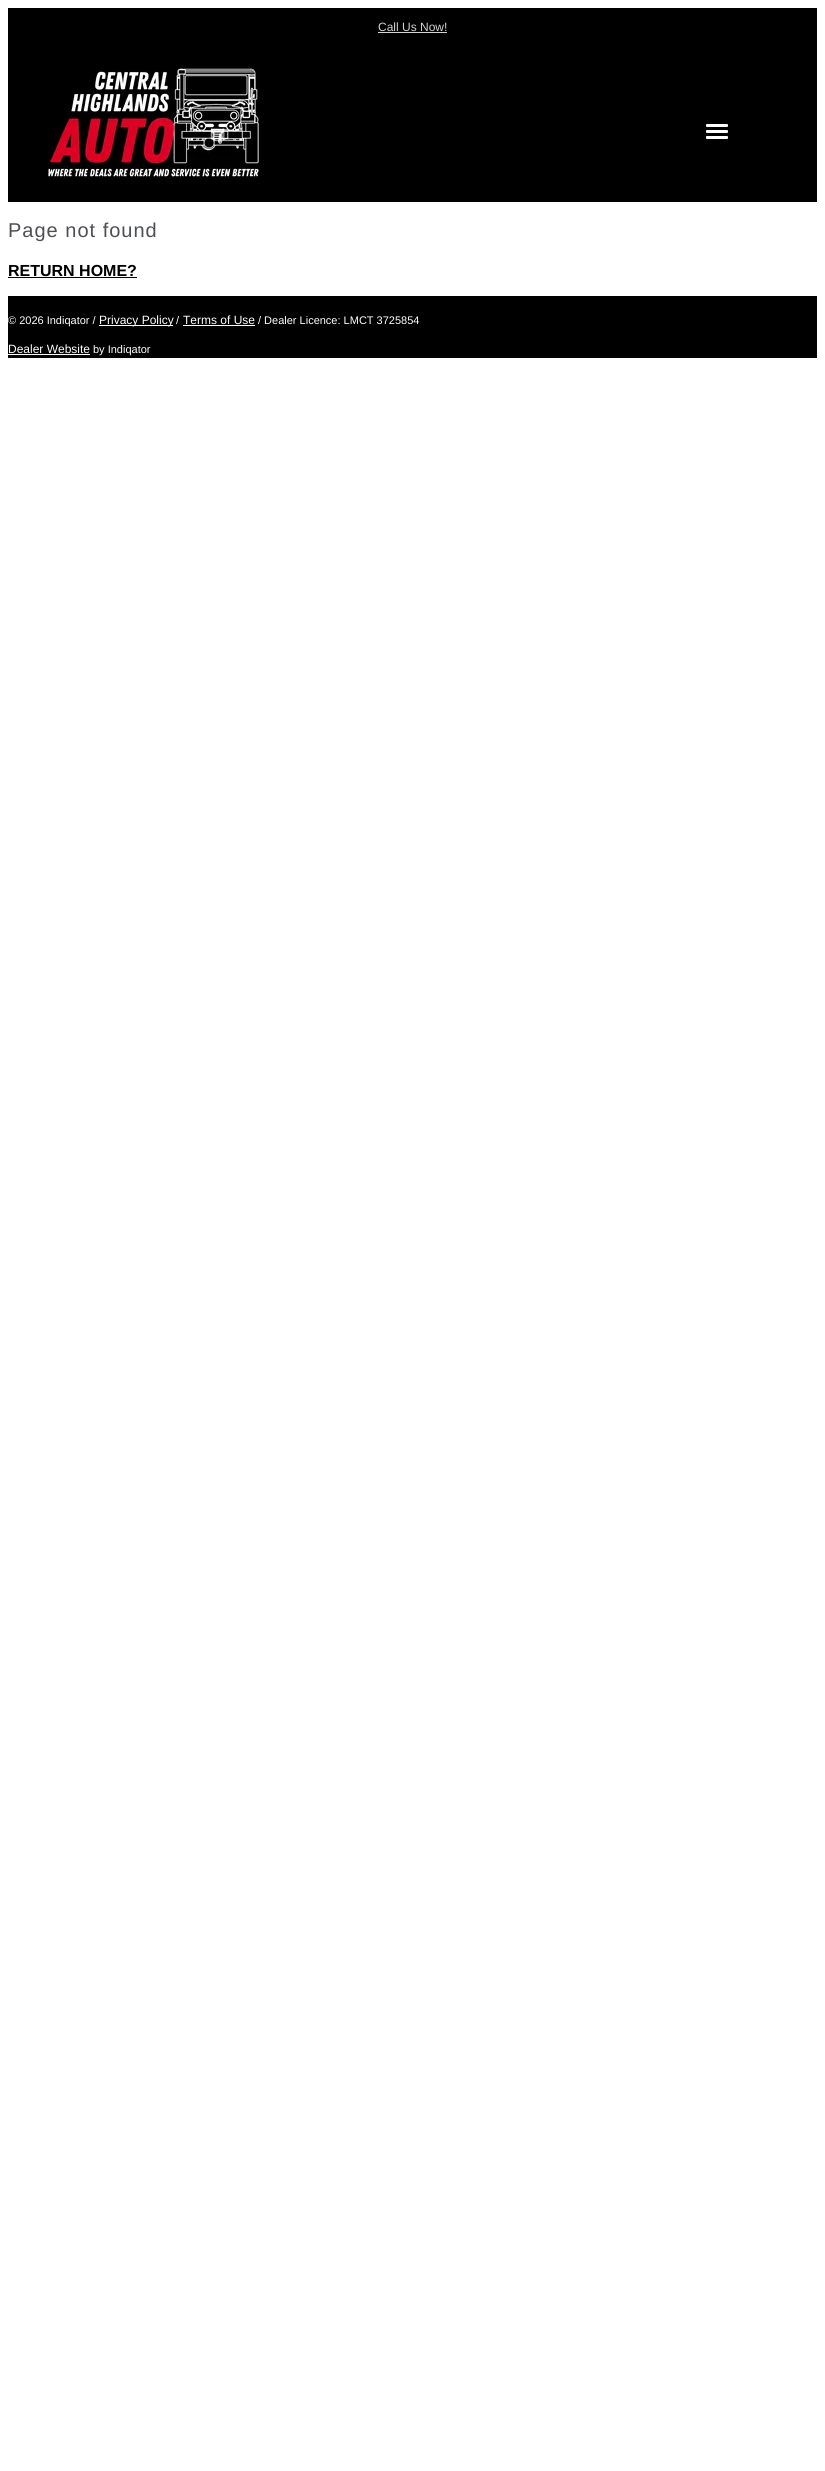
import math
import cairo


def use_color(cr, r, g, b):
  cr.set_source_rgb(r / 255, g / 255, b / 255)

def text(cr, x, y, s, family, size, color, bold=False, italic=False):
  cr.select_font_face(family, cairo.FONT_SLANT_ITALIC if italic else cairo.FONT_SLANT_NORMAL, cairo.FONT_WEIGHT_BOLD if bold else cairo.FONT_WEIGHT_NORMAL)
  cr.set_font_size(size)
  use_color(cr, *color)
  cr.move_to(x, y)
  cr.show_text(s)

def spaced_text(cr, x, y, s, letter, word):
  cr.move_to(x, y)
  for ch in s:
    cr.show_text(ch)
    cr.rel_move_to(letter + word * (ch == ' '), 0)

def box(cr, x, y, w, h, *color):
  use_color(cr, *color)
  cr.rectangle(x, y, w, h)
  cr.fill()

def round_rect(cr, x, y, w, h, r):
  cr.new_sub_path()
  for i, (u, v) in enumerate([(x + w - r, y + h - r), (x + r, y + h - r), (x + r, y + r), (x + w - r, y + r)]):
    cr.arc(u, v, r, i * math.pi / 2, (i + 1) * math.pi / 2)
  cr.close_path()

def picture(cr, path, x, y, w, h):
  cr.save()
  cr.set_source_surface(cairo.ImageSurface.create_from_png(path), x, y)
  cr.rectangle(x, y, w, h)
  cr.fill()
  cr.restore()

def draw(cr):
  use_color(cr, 255, 255, 255)
  cr.paint()
  box(cr, 8, 8, 809, 194, 0, 0, 0)
  box(cr, 378, 32, 69, 1, 209, 211, 212)
  picture(cr, "img_01.png", 48, 67, 212, 111)
  use_color(cr, 255, 255, 255)
  round_rect(cr, 706, 124, 22, 3, 1)
  cr.fill()
  round_rect(cr, 706, 130, 22, 3, 1)
  cr.fill()
  round_rect(cr, 706, 136, 22, 3, 1)
  cr.fill()
  box(cr, 8, 277, 129, 1, 0, 0, 0)
  box(cr, 8, 296, 809, 62, 0, 0, 0)
  box(cr, 99, 325, 74, 1, 255, 255, 255)
  box(cr, 183, 325, 72, 1, 255, 255, 255)
  box(cr, 8, 354, 82, 1, 255, 255, 255)
  text(cr, 378, 31, "Call Us Now!", "Liberation Sans", 12, (209, 211, 212))
  cr.set_font_size(20)
  use_color(cr, 77, 79, 83)
  spaced_text(cr, 8, 237, "Page not found", 1, 0)
  text(cr, 8, 276, "RETURN HOME?", "Liberation Sans", 16, (0, 0, 0), bold=True)
  text(cr, 8, 324, "© 2026 Indiqator /", "Liberation Sans", 11, (255, 255, 255))
  text(cr, 99, 324, "Privacy Policy", "Liberation Sans", 12, (255, 255, 255))
  text(cr, 176, 324, "/", "Liberation Sans", 11, (255, 255, 255))
  text(cr, 183, 324, "Terms of Use", "Liberation Sans", 12, (255, 255, 255))
  text(cr, 258, 324, "/ Dealer Licence: LMCT 3725854", "Liberation Sans", 11, (255, 255, 255))
  text(cr, 8, 353, "Dealer Website", "Liberation Sans", 12, (255, 255, 255))
  text(cr, 93, 353, "by Indiqator", "Liberation Sans", 11, (255, 255, 255))


surface = cairo.ImageSurface(cairo.FORMAT_RGB24, 825, 2471)
cr = cairo.Context(surface)
options = cairo.FontOptions()
options.set_hint_metrics(cairo.HINT_METRICS_OFF)
options.set_hint_style(cairo.HINT_STYLE_NONE)
cr.set_font_options(options)
cr.set_miter_limit(4)
draw(cr)
surface.write_to_png("out.png")
